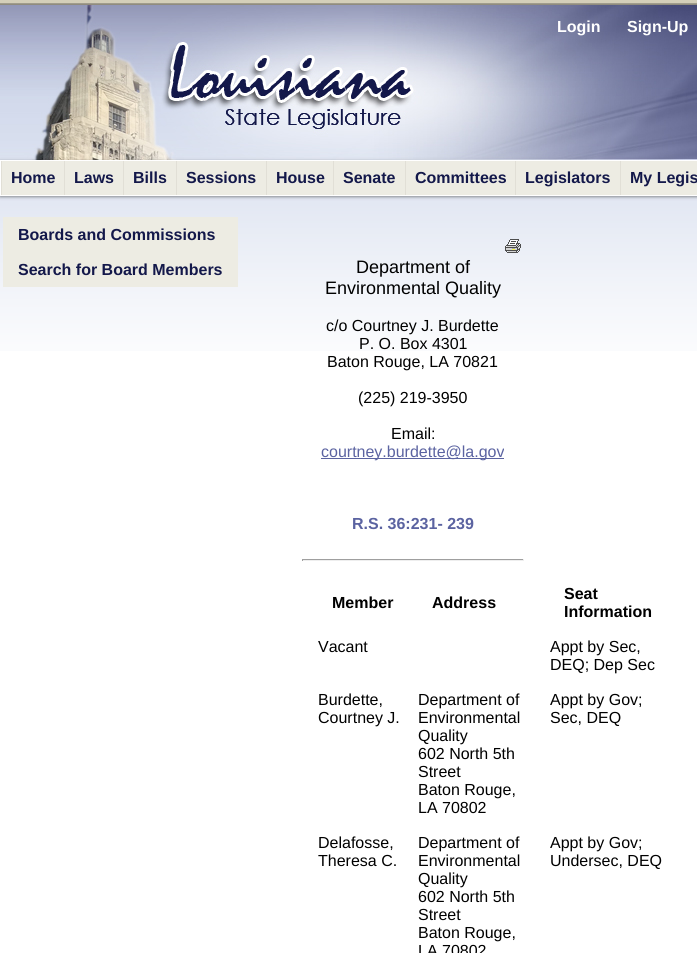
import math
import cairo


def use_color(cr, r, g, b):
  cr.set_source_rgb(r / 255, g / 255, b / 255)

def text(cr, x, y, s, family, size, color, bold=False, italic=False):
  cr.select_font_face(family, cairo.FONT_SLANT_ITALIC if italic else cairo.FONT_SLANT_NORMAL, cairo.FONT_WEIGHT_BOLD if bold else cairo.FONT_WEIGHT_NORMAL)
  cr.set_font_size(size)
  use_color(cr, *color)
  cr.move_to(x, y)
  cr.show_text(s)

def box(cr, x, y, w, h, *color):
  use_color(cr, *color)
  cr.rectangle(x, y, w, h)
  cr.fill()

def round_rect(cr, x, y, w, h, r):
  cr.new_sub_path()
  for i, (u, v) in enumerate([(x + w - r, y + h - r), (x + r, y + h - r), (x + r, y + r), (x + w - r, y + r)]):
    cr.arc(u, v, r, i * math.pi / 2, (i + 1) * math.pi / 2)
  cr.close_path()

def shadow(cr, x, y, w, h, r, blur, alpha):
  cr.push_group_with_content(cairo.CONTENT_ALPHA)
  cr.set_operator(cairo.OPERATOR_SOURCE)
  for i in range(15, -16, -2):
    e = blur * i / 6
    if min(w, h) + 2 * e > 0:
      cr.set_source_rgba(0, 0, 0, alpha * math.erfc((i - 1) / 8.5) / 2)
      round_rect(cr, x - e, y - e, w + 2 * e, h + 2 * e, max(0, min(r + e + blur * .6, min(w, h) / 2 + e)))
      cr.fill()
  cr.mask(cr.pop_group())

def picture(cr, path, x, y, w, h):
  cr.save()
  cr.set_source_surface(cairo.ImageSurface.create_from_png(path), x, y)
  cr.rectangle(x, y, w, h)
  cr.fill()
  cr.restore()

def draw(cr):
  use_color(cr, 255, 255, 255)
  cr.paint()
  picture(cr, "img_01.png", 0, 0, 697, 351)
  picture(cr, "img_02.png", 0, 5, 697, 155)
  use_color(cr, 0, 0, 0)
  shadow(cr, 0, 161, 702, 36, 0, 1.5, 0.4)
  box(cr, 2, 161, 695, 34, 237, 236, 227)
  cr.rectangle(0.5, 160.5, 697, 35)
  use_color(cr, 255, 255, 255)
  cr.set_line_width(1)
  cr.stroke()
  box(cr, 1, 161, 1, 34, 225, 223, 214)
  box(cr, 64, 161, 1, 34, 225, 223, 214)
  box(cr, 123, 161, 1, 34, 225, 223, 214)
  box(cr, 176, 161, 1, 34, 225, 223, 214)
  box(cr, 266, 161, 1, 34, 225, 223, 214)
  box(cr, 333, 161, 1, 34, 225, 223, 214)
  box(cr, 405, 161, 1, 34, 225, 223, 214)
  box(cr, 515, 161, 1, 34, 225, 223, 214)
  box(cr, 620, 161, 1, 34, 225, 223, 214)
  box(cr, 3, 217, 235, 70, 237, 236, 227)
  picture(cr, "img_03.png", 505, 239, 16, 14)
  box(cr, 321, 458, 183, 1, 91, 99, 161)
  box(cr, 302, 559, 222, 1, 159, 159, 159)
  box(cr, 523, 559, 1, 2, 238, 238, 238)
  box(cr, 302, 560, 222, 1, 238, 238, 238)
  box(cr, 302, 559, 1, 2, 159, 159, 159)
  text(cr, 557, 32, "Login", "Liberation Sans", 16, (255, 255, 255), bold=True)
  text(cr, 627, 32, "Sign-Up", "Liberation Sans", 16, (255, 255, 255), bold=True)
  text(cr, 11, 183, "Home", "Liberation Sans", 16, (19, 24, 74), bold=True)
  text(cr, 74, 183, "Laws", "Liberation Sans", 16, (19, 24, 74), bold=True)
  text(cr, 133, 183, "Bills", "Liberation Sans", 16, (19, 24, 74), bold=True)
  text(cr, 186, 183, "Sessions", "Liberation Sans", 16, (19, 24, 74), bold=True)
  text(cr, 276, 183, "House", "Liberation Sans", 16, (19, 24, 74), bold=True)
  text(cr, 343, 183, "Senate", "Liberation Sans", 16, (19, 24, 74), bold=True)
  text(cr, 415, 183, "Committees", "Liberation Sans", 16, (19, 24, 74), bold=True)
  text(cr, 525, 183, "Legislators", "Liberation Sans", 16, (19, 24, 74), bold=True)
  text(cr, 630, 183, "My Legis", "Liberation Sans", 16, (19, 24, 74), bold=True)
  text(cr, 18, 240, "Boards and Commissions", "Liberation Sans", 16, (19, 24, 74), bold=True)
  text(cr, 18, 275, "Search for Board Members", "Liberation Sans", 16, (19, 24, 74), bold=True)
  text(cr, 356, 273, "Department of", "Liberation Sans", 18, (0, 0, 0))
  text(cr, 325, 294, "Environmental Quality", "Liberation Sans", 18, (0, 0, 0))
  text(cr, 326, 331, "c/o Courtney J. Burdette", "Liberation Sans", 16, (0, 0, 0))
  text(cr, 359, 349, "P. O. Box 4301", "Liberation Sans", 16, (0, 0, 0))
  text(cr, 327, 367, "Baton Rouge, LA 70821", "Liberation Sans", 16, (0, 0, 0))
  text(cr, 358, 403, "(225) 219-3950", "Liberation Sans", 16, (0, 0, 0))
  text(cr, 391, 439, "Email:", "Liberation Sans", 16, (0, 0, 0))
  text(cr, 321, 457, "courtney.burdette@la.gov", "Liberation Sans", 16, (91, 99, 161))
  text(cr, 352, 529, "R.S. 36:231- 239", "Liberation Sans", 16, (91, 99, 161), bold=True)
  text(cr, 332, 608, "Member", "Liberation Sans", 16, (0, 0, 0), bold=True)
  text(cr, 432, 608, "Address", "Liberation Sans", 16, (0, 0, 0), bold=True)
  text(cr, 564, 599, "Seat", "Liberation Sans", 16, (0, 0, 0), bold=True)
  text(cr, 564, 617, "Information", "Liberation Sans", 16, (0, 0, 0), bold=True)
  text(cr, 318, 652, "Vacant", "Liberation Sans", 16, (0, 0, 0))
  text(cr, 550, 652, "Appt by Sec,", "Liberation Sans", 16, (0, 0, 0))
  text(cr, 550, 670, "DEQ; Dep Sec", "Liberation Sans", 16, (0, 0, 0))
  text(cr, 318, 705, "Burdette,", "Liberation Sans", 16, (0, 0, 0))
  text(cr, 318, 723, "Courtney J.", "Liberation Sans", 16, (0, 0, 0))
  text(cr, 418, 705, "Department of", "Liberation Sans", 16, (0, 0, 0))
  text(cr, 418, 723, "Environmental", "Liberation Sans", 16, (0, 0, 0))
  text(cr, 418, 741, "Quality", "Liberation Sans", 16, (0, 0, 0))
  text(cr, 418, 759, "602 North 5th", "Liberation Sans", 16, (0, 0, 0))
  text(cr, 418, 777, "Street", "Liberation Sans", 16, (0, 0, 0))
  text(cr, 418, 795, "Baton Rouge,", "Liberation Sans", 16, (0, 0, 0))
  text(cr, 418, 813, "LA 70802", "Liberation Sans", 16, (0, 0, 0))
  text(cr, 550, 705, "Appt by Gov;", "Liberation Sans", 16, (0, 0, 0))
  text(cr, 550, 723, "Sec, DEQ", "Liberation Sans", 16, (0, 0, 0))
  text(cr, 318, 848, "Delafosse,", "Liberation Sans", 16, (0, 0, 0))
  text(cr, 318, 866, "Theresa C.", "Liberation Sans", 16, (0, 0, 0))
  text(cr, 418, 848, "Department of", "Liberation Sans", 16, (0, 0, 0))
  text(cr, 418, 866, "Environmental", "Liberation Sans", 16, (0, 0, 0))
  text(cr, 418, 884, "Quality", "Liberation Sans", 16, (0, 0, 0))
  text(cr, 418, 902, "602 North 5th", "Liberation Sans", 16, (0, 0, 0))
  text(cr, 418, 920, "Street", "Liberation Sans", 16, (0, 0, 0))
  text(cr, 418, 938, "Baton Rouge,", "Liberation Sans", 16, (0, 0, 0))
  text(cr, 418, 956, "LA 70802", "Liberation Sans", 16, (0, 0, 0))
  text(cr, 550, 848, "Appt by Gov;", "Liberation Sans", 16, (0, 0, 0))
  text(cr, 550, 866, "Undersec, DEQ", "Liberation Sans", 16, (0, 0, 0))


surface = cairo.ImageSurface(cairo.FORMAT_RGB24, 697, 953)
cr = cairo.Context(surface)
options = cairo.FontOptions()
options.set_hint_metrics(cairo.HINT_METRICS_OFF)
options.set_hint_style(cairo.HINT_STYLE_NONE)
cr.set_font_options(options)
cr.set_miter_limit(4)
draw(cr)
surface.write_to_png("out.png")
